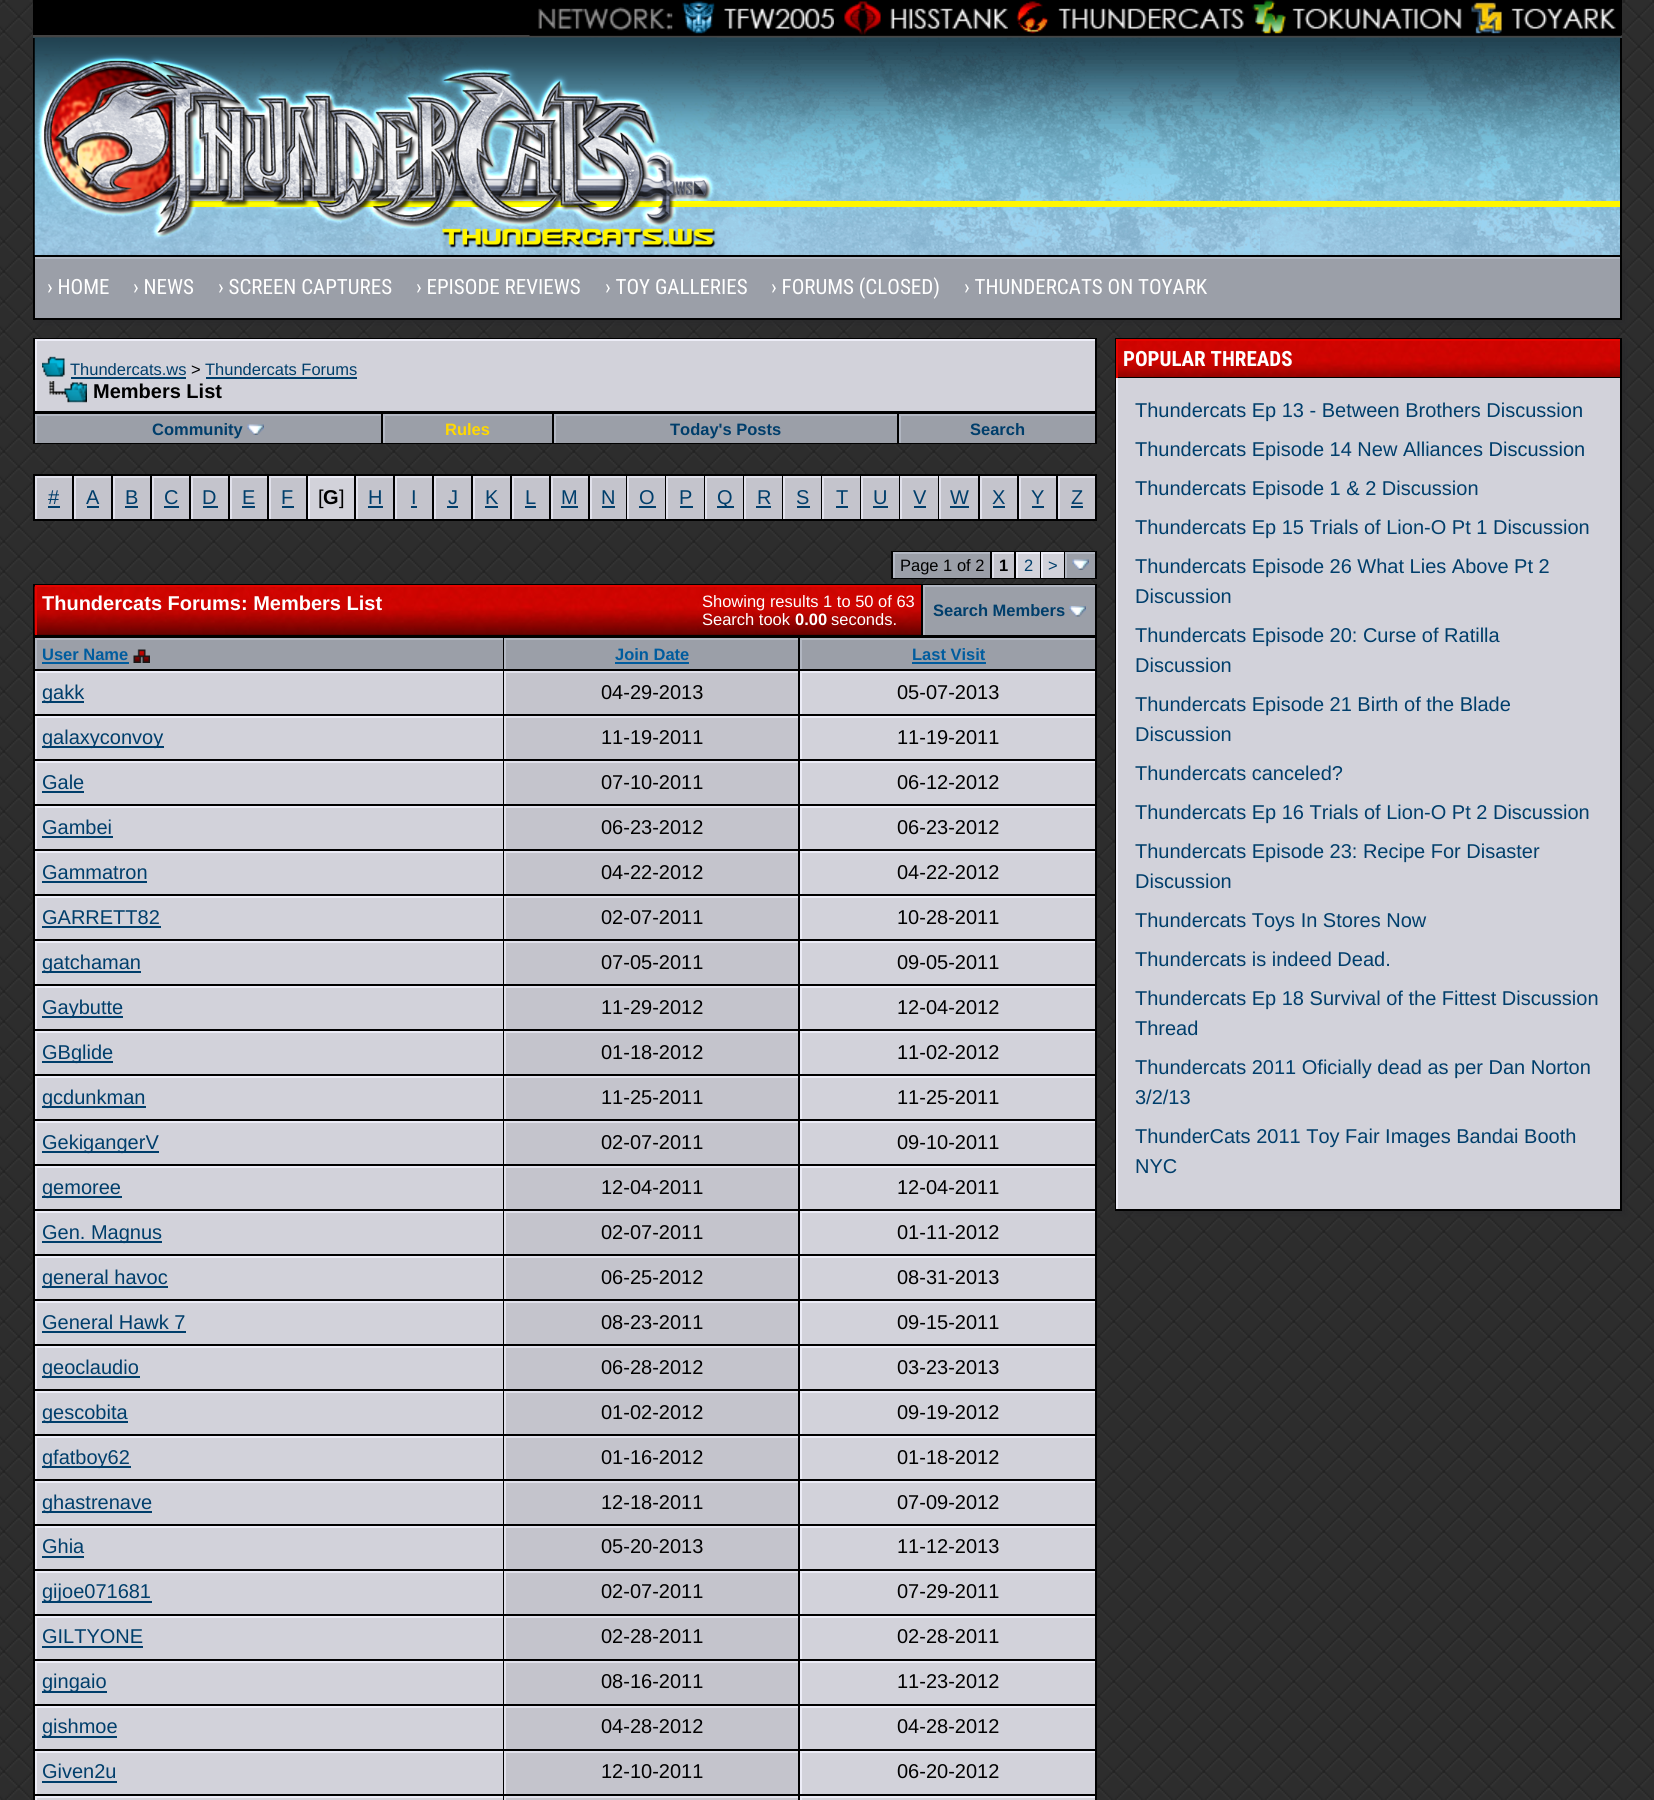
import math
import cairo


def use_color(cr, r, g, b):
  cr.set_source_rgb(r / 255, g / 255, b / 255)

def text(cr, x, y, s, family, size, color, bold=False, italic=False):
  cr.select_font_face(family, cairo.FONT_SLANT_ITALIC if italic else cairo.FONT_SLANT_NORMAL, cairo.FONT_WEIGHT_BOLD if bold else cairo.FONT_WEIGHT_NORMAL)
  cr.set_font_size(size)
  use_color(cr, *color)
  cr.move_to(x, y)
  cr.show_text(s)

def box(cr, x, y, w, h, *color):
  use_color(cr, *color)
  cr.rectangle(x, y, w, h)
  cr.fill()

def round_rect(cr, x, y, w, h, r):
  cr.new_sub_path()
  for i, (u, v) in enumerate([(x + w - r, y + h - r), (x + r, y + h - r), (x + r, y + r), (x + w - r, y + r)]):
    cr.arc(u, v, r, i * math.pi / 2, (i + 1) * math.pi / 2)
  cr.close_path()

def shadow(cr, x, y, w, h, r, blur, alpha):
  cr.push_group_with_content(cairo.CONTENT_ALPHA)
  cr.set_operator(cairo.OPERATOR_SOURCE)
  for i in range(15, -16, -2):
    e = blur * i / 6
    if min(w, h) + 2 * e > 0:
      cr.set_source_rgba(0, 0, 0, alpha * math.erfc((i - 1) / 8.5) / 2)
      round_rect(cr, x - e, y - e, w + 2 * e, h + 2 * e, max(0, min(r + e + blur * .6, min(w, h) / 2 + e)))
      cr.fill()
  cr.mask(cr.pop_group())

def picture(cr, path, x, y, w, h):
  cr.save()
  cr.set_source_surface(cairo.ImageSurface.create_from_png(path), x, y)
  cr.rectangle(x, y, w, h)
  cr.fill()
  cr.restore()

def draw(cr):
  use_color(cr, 255, 255, 255)
  cr.paint()
  picture(cr, "img_01.png", 0, 0, 1654, 1800)
  box(cr, 33, 0, 1589, 35, 0, 0, 0)
  box(cr, 33, 35, 1589, 3, 68, 68, 68)
  picture(cr, "img_02.png", 529, 0, 1093, 38)
  picture(cr, "img_03.png", 670, 1, 164, 33)
  picture(cr, "img_04.png", 842, 1, 166, 34)
  picture(cr, "img_05.png", 1015, 1, 229, 33)
  picture(cr, "img_06.png", 33, 37, 1589, 218)
  box(cr, 1620, 38, 2, 217, 0, 0, 0)
  box(cr, 33, 38, 2, 217, 0, 0, 0)
  picture(cr, "img_07.png", 34, 37, 683, 218)
  use_color(cr, 41, 41, 43)
  shadow(cr, 39, 261, 1586, 62, 0, 4, 1)
  box(cr, 35, 259, 1585, 59, 155, 159, 168)
  box(cr, 35, 257, 1585, 2, 178, 183, 194)
  cr.rectangle(34, 256, 1587, 63)
  use_color(cr, 0, 0, 0)
  cr.stroke()
  box(cr, 33, 338, 1064, 106, 0, 0, 0)
  box(cr, 37, 341, 1058, 70, 210, 210, 218)
  box(cr, 35, 339, 1060, 2, 237, 237, 247)
  box(cr, 35, 339, 2, 72, 237, 237, 247)
  picture(cr, "img_08.png", 42, 356, 23, 21)
  box(cr, 71, 377, 115, 2, 0, 62, 107)
  box(cr, 206, 377, 151, 2, 0, 62, 107)
  picture(cr, "img_09.png", 49, 381, 38, 22)
  box(cr, 37, 416, 344, 27, 155, 159, 168)
  box(cr, 35, 414, 346, 2, 178, 183, 194)
  box(cr, 35, 414, 2, 29, 178, 183, 194)
  picture(cr, "img_10.png", 247, 424, 17, 11)
  box(cr, 385, 416, 167, 27, 155, 159, 168)
  box(cr, 383, 414, 169, 2, 178, 183, 194)
  box(cr, 383, 414, 2, 29, 178, 183, 194)
  box(cr, 556, 416, 341, 27, 155, 159, 168)
  box(cr, 554, 414, 343, 2, 178, 183, 194)
  box(cr, 554, 414, 2, 29, 178, 183, 194)
  box(cr, 901, 416, 194, 27, 155, 159, 168)
  box(cr, 899, 414, 196, 2, 178, 183, 194)
  box(cr, 899, 414, 2, 29, 178, 183, 194)
  box(cr, 33, 474, 1064, 47, 0, 0, 0)
  box(cr, 37, 478, 35, 41, 196, 196, 204)
  box(cr, 35, 476, 37, 2, 225, 225, 235)
  box(cr, 35, 476, 2, 43, 225, 225, 235)
  box(cr, 48, 506, 12, 2, 0, 62, 107)
  box(cr, 76, 478, 35, 41, 196, 196, 204)
  box(cr, 74, 476, 37, 2, 225, 225, 235)
  box(cr, 74, 476, 2, 43, 225, 225, 235)
  box(cr, 87, 506, 12, 2, 0, 62, 107)
  box(cr, 115, 478, 35, 41, 196, 196, 204)
  box(cr, 113, 476, 37, 2, 225, 225, 235)
  box(cr, 113, 476, 2, 43, 225, 225, 235)
  box(cr, 125, 506, 13, 2, 0, 62, 107)
  box(cr, 154, 478, 35, 41, 196, 196, 204)
  box(cr, 152, 476, 37, 2, 225, 225, 235)
  box(cr, 152, 476, 2, 43, 225, 225, 235)
  box(cr, 164, 506, 15, 2, 0, 62, 107)
  box(cr, 193, 478, 35, 41, 196, 196, 204)
  box(cr, 191, 476, 37, 2, 225, 225, 235)
  box(cr, 191, 476, 2, 43, 225, 225, 235)
  box(cr, 203, 506, 15, 2, 0, 62, 107)
  box(cr, 232, 478, 35, 41, 196, 196, 204)
  box(cr, 230, 476, 37, 2, 225, 225, 235)
  box(cr, 230, 476, 2, 43, 225, 225, 235)
  box(cr, 242, 506, 13, 2, 0, 62, 107)
  box(cr, 271, 478, 35, 41, 196, 196, 204)
  box(cr, 269, 476, 37, 2, 225, 225, 235)
  box(cr, 269, 476, 2, 43, 225, 225, 235)
  box(cr, 282, 506, 12, 2, 0, 62, 107)
  box(cr, 310, 478, 44, 41, 210, 210, 218)
  box(cr, 308, 476, 46, 2, 237, 237, 247)
  box(cr, 308, 476, 2, 43, 237, 237, 247)
  box(cr, 358, 478, 35, 41, 196, 196, 204)
  box(cr, 356, 476, 37, 2, 225, 225, 235)
  box(cr, 356, 476, 2, 43, 225, 225, 235)
  box(cr, 368, 506, 15, 2, 0, 62, 107)
  box(cr, 397, 478, 35, 41, 196, 196, 204)
  box(cr, 395, 476, 37, 2, 225, 225, 235)
  box(cr, 395, 476, 2, 43, 225, 225, 235)
  box(cr, 411, 506, 6, 2, 0, 62, 107)
  box(cr, 436, 478, 35, 41, 196, 196, 204)
  box(cr, 434, 476, 37, 2, 225, 225, 235)
  box(cr, 434, 476, 2, 43, 225, 225, 235)
  box(cr, 447, 506, 11, 2, 0, 62, 107)
  box(cr, 475, 478, 35, 41, 196, 196, 204)
  box(cr, 473, 476, 37, 2, 225, 225, 235)
  box(cr, 473, 476, 2, 43, 225, 225, 235)
  box(cr, 485, 506, 13, 2, 0, 62, 107)
  box(cr, 514, 478, 35, 41, 196, 196, 204)
  box(cr, 512, 476, 37, 2, 225, 225, 235)
  box(cr, 512, 476, 2, 43, 225, 225, 235)
  box(cr, 525, 506, 11, 2, 0, 62, 107)
  box(cr, 553, 478, 35, 41, 196, 196, 204)
  box(cr, 551, 476, 37, 2, 225, 225, 235)
  box(cr, 551, 476, 2, 43, 225, 225, 235)
  box(cr, 561, 506, 17, 2, 0, 62, 107)
  box(cr, 592, 478, 34, 41, 196, 196, 204)
  box(cr, 590, 476, 36, 2, 225, 225, 235)
  box(cr, 590, 476, 2, 43, 225, 225, 235)
  box(cr, 602, 506, 13, 2, 0, 62, 107)
  box(cr, 629, 478, 36, 41, 196, 196, 204)
  box(cr, 627, 476, 38, 2, 225, 225, 235)
  box(cr, 627, 476, 2, 43, 225, 225, 235)
  box(cr, 639, 506, 17, 2, 0, 62, 107)
  box(cr, 668, 478, 36, 41, 196, 196, 204)
  box(cr, 666, 476, 38, 2, 225, 225, 235)
  box(cr, 666, 476, 2, 43, 225, 225, 235)
  box(cr, 680, 506, 13, 2, 0, 62, 107)
  box(cr, 707, 478, 36, 41, 196, 196, 204)
  box(cr, 705, 476, 38, 2, 225, 225, 235)
  box(cr, 705, 476, 2, 43, 225, 225, 235)
  box(cr, 717, 506, 17, 2, 0, 62, 107)
  box(cr, 746, 478, 36, 41, 196, 196, 204)
  box(cr, 744, 476, 38, 2, 225, 225, 235)
  box(cr, 744, 476, 2, 43, 225, 225, 235)
  box(cr, 756, 506, 15, 2, 0, 62, 107)
  box(cr, 785, 478, 36, 41, 196, 196, 204)
  box(cr, 783, 476, 38, 2, 225, 225, 235)
  box(cr, 783, 476, 2, 43, 225, 225, 235)
  box(cr, 797, 506, 13, 2, 0, 62, 107)
  box(cr, 824, 478, 36, 41, 196, 196, 204)
  box(cr, 822, 476, 38, 2, 225, 225, 235)
  box(cr, 822, 476, 2, 43, 225, 225, 235)
  box(cr, 836, 506, 12, 2, 0, 62, 107)
  box(cr, 863, 478, 36, 41, 196, 196, 204)
  box(cr, 861, 476, 38, 2, 225, 225, 235)
  box(cr, 861, 476, 2, 43, 225, 225, 235)
  box(cr, 873, 506, 15, 2, 0, 62, 107)
  box(cr, 902, 478, 36, 41, 196, 196, 204)
  box(cr, 900, 476, 38, 2, 225, 225, 235)
  box(cr, 900, 476, 2, 43, 225, 225, 235)
  box(cr, 914, 506, 12, 2, 0, 62, 107)
  box(cr, 941, 478, 37, 41, 196, 196, 204)
  box(cr, 939, 476, 39, 2, 225, 225, 235)
  box(cr, 939, 476, 2, 43, 225, 225, 235)
  box(cr, 950, 506, 19, 2, 0, 62, 107)
  box(cr, 982, 478, 35, 41, 196, 196, 204)
  box(cr, 980, 476, 37, 2, 225, 225, 235)
  box(cr, 980, 476, 2, 43, 225, 225, 235)
  box(cr, 993, 506, 12, 2, 0, 62, 107)
  box(cr, 1021, 478, 35, 41, 196, 196, 204)
  box(cr, 1019, 476, 37, 2, 225, 225, 235)
  box(cr, 1019, 476, 2, 43, 225, 225, 235)
  box(cr, 1032, 506, 12, 2, 0, 62, 107)
  box(cr, 1060, 478, 35, 41, 196, 196, 204)
  box(cr, 1058, 476, 37, 2, 225, 225, 235)
  box(cr, 1058, 476, 2, 43, 225, 225, 235)
  box(cr, 1071, 506, 12, 2, 0, 62, 107)
  box(cr, 891, 551, 206, 28, 0, 0, 0)
  box(cr, 895, 554, 95, 24, 155, 159, 168)
  box(cr, 893, 552, 97, 2, 178, 183, 194)
  box(cr, 893, 552, 2, 26, 178, 183, 194)
  box(cr, 994, 554, 20, 24, 196, 196, 204)
  box(cr, 992, 552, 22, 2, 225, 225, 235)
  box(cr, 992, 552, 2, 26, 225, 225, 235)
  box(cr, 1018, 554, 22, 24, 210, 210, 218)
  box(cr, 1016, 552, 24, 2, 237, 237, 247)
  box(cr, 1016, 552, 2, 26, 237, 237, 247)
  box(cr, 1043, 554, 21, 24, 210, 210, 218)
  box(cr, 1041, 552, 23, 2, 237, 237, 247)
  box(cr, 1041, 552, 2, 26, 237, 237, 247)
  box(cr, 1067, 554, 28, 24, 155, 159, 168)
  box(cr, 1065, 552, 30, 2, 178, 183, 194)
  box(cr, 1065, 552, 2, 26, 178, 183, 194)
  picture(cr, "img_10.png", 1072, 559, 17, 11)
  box(cr, 33, 584, 1064, 1216, 0, 0, 0)
  box(cr, 37, 634, 884, 1, 80, 1, 0)
  picture(cr, "img_11.png", 34, 586, 887, 49)
  box(cr, 35, 585, 886, 2, 229, 4, 0)
  box(cr, 35, 585, 2, 50, 229, 4, 0)
  box(cr, 925, 587, 170, 48, 155, 159, 168)
  box(cr, 923, 585, 172, 2, 178, 183, 194)
  box(cr, 923, 585, 2, 50, 178, 183, 194)
  picture(cr, "img_12.png", 1069, 606, 17, 11)
  box(cr, 37, 640, 466, 29, 155, 159, 168)
  box(cr, 35, 638, 468, 2, 178, 183, 194)
  box(cr, 35, 638, 2, 31, 178, 183, 194)
  box(cr, 42, 662, 87, 2, 0, 92, 158)
  picture(cr, "img_13.png", 133, 649, 17, 14)
  box(cr, 506, 640, 292, 29, 155, 159, 168)
  box(cr, 504, 638, 294, 2, 178, 183, 194)
  box(cr, 504, 638, 2, 31, 178, 183, 194)
  box(cr, 615, 662, 74, 2, 0, 92, 158)
  box(cr, 802, 640, 293, 29, 155, 159, 168)
  box(cr, 800, 638, 295, 2, 178, 183, 194)
  box(cr, 800, 638, 2, 31, 178, 183, 194)
  box(cr, 912, 662, 74, 2, 0, 92, 158)
  box(cr, 37, 673, 466, 41, 210, 210, 218)
  box(cr, 35, 671, 468, 2, 237, 237, 247)
  box(cr, 35, 671, 2, 43, 237, 237, 247)
  box(cr, 42, 701, 42, 2, 0, 62, 107)
  box(cr, 506, 673, 292, 41, 196, 196, 204)
  box(cr, 504, 671, 294, 2, 225, 225, 235)
  box(cr, 504, 671, 2, 43, 225, 225, 235)
  box(cr, 802, 673, 293, 41, 210, 210, 218)
  box(cr, 800, 671, 295, 2, 237, 237, 247)
  box(cr, 800, 671, 2, 43, 237, 237, 247)
  box(cr, 37, 718, 466, 41, 210, 210, 218)
  box(cr, 35, 716, 468, 2, 237, 237, 247)
  box(cr, 35, 716, 2, 43, 237, 237, 247)
  box(cr, 42, 746, 122, 2, 0, 62, 107)
  box(cr, 506, 718, 292, 41, 196, 196, 204)
  box(cr, 504, 716, 294, 2, 225, 225, 235)
  box(cr, 504, 716, 2, 43, 225, 225, 235)
  box(cr, 802, 718, 293, 41, 210, 210, 218)
  box(cr, 800, 716, 295, 2, 237, 237, 247)
  box(cr, 800, 716, 2, 43, 237, 237, 247)
  box(cr, 37, 763, 466, 41, 210, 210, 218)
  box(cr, 35, 761, 468, 2, 237, 237, 247)
  box(cr, 35, 761, 2, 43, 237, 237, 247)
  box(cr, 42, 791, 42, 2, 0, 62, 107)
  box(cr, 506, 763, 292, 41, 196, 196, 204)
  box(cr, 504, 761, 294, 2, 225, 225, 235)
  box(cr, 504, 761, 2, 43, 225, 225, 235)
  box(cr, 802, 763, 293, 41, 210, 210, 218)
  box(cr, 800, 761, 295, 2, 237, 237, 247)
  box(cr, 800, 761, 2, 43, 237, 237, 247)
  box(cr, 37, 808, 466, 41, 210, 210, 218)
  box(cr, 35, 806, 468, 2, 237, 237, 247)
  box(cr, 35, 806, 2, 43, 237, 237, 247)
  box(cr, 42, 836, 71, 2, 0, 62, 107)
  box(cr, 506, 808, 292, 41, 196, 196, 204)
  box(cr, 504, 806, 294, 2, 225, 225, 235)
  box(cr, 504, 806, 2, 43, 225, 225, 235)
  box(cr, 802, 808, 293, 41, 210, 210, 218)
  box(cr, 800, 806, 295, 2, 237, 237, 247)
  box(cr, 800, 806, 2, 43, 237, 237, 247)
  box(cr, 37, 853, 466, 41, 210, 210, 218)
  box(cr, 35, 851, 468, 2, 237, 237, 247)
  box(cr, 35, 851, 2, 43, 237, 237, 247)
  box(cr, 42, 881, 105, 2, 0, 62, 107)
  box(cr, 506, 853, 292, 41, 196, 196, 204)
  box(cr, 504, 851, 294, 2, 225, 225, 235)
  box(cr, 504, 851, 2, 43, 225, 225, 235)
  box(cr, 802, 853, 293, 41, 210, 210, 218)
  box(cr, 800, 851, 295, 2, 237, 237, 247)
  box(cr, 800, 851, 2, 43, 237, 237, 247)
  box(cr, 37, 898, 466, 41, 210, 210, 218)
  box(cr, 35, 896, 468, 2, 237, 237, 247)
  box(cr, 35, 896, 2, 43, 237, 237, 247)
  box(cr, 42, 926, 119, 2, 0, 62, 107)
  box(cr, 506, 898, 292, 41, 196, 196, 204)
  box(cr, 504, 896, 294, 2, 225, 225, 235)
  box(cr, 504, 896, 2, 43, 225, 225, 235)
  box(cr, 802, 898, 293, 41, 210, 210, 218)
  box(cr, 800, 896, 295, 2, 237, 237, 247)
  box(cr, 800, 896, 2, 43, 237, 237, 247)
  box(cr, 37, 943, 466, 41, 210, 210, 218)
  box(cr, 35, 941, 468, 2, 237, 237, 247)
  box(cr, 35, 941, 2, 43, 237, 237, 247)
  box(cr, 42, 971, 99, 2, 0, 62, 107)
  box(cr, 506, 943, 292, 41, 196, 196, 204)
  box(cr, 504, 941, 294, 2, 225, 225, 235)
  box(cr, 504, 941, 2, 43, 225, 225, 235)
  box(cr, 802, 943, 293, 41, 210, 210, 218)
  box(cr, 800, 941, 295, 2, 237, 237, 247)
  box(cr, 800, 941, 2, 43, 237, 237, 247)
  box(cr, 37, 988, 466, 41, 210, 210, 218)
  box(cr, 35, 986, 468, 2, 237, 237, 247)
  box(cr, 35, 986, 2, 43, 237, 237, 247)
  box(cr, 42, 1016, 81, 2, 0, 62, 107)
  box(cr, 506, 988, 292, 41, 196, 196, 204)
  box(cr, 504, 986, 294, 2, 225, 225, 235)
  box(cr, 504, 986, 2, 43, 225, 225, 235)
  box(cr, 802, 988, 293, 41, 210, 210, 218)
  box(cr, 800, 986, 295, 2, 237, 237, 247)
  box(cr, 800, 986, 2, 43, 237, 237, 247)
  box(cr, 37, 1033, 466, 41, 210, 210, 218)
  box(cr, 35, 1031, 468, 2, 237, 237, 247)
  box(cr, 35, 1031, 2, 43, 237, 237, 247)
  box(cr, 42, 1061, 71, 2, 0, 62, 107)
  box(cr, 506, 1033, 292, 41, 196, 196, 204)
  box(cr, 504, 1031, 294, 2, 225, 225, 235)
  box(cr, 504, 1031, 2, 43, 225, 225, 235)
  box(cr, 802, 1033, 293, 41, 210, 210, 218)
  box(cr, 800, 1031, 295, 2, 237, 237, 247)
  box(cr, 800, 1031, 2, 43, 237, 237, 247)
  box(cr, 37, 1078, 466, 41, 210, 210, 218)
  box(cr, 35, 1076, 468, 2, 237, 237, 247)
  box(cr, 35, 1076, 2, 43, 237, 237, 247)
  box(cr, 42, 1106, 104, 2, 0, 62, 107)
  box(cr, 506, 1078, 292, 41, 196, 196, 204)
  box(cr, 504, 1076, 294, 2, 225, 225, 235)
  box(cr, 504, 1076, 2, 43, 225, 225, 235)
  box(cr, 802, 1078, 293, 41, 210, 210, 218)
  box(cr, 800, 1076, 295, 2, 237, 237, 247)
  box(cr, 800, 1076, 2, 43, 237, 237, 247)
  box(cr, 37, 1123, 466, 41, 210, 210, 218)
  box(cr, 35, 1121, 468, 2, 237, 237, 247)
  box(cr, 35, 1121, 2, 43, 237, 237, 247)
  box(cr, 42, 1151, 117, 2, 0, 62, 107)
  box(cr, 506, 1123, 292, 41, 196, 196, 204)
  box(cr, 504, 1121, 294, 2, 225, 225, 235)
  box(cr, 504, 1121, 2, 43, 225, 225, 235)
  box(cr, 802, 1123, 293, 41, 210, 210, 218)
  box(cr, 800, 1121, 295, 2, 237, 237, 247)
  box(cr, 800, 1121, 2, 43, 237, 237, 247)
  box(cr, 37, 1168, 466, 41, 210, 210, 218)
  box(cr, 35, 1166, 468, 2, 237, 237, 247)
  box(cr, 35, 1166, 2, 43, 237, 237, 247)
  box(cr, 42, 1196, 80, 2, 0, 62, 107)
  box(cr, 506, 1168, 292, 41, 196, 196, 204)
  box(cr, 504, 1166, 294, 2, 225, 225, 235)
  box(cr, 504, 1166, 2, 43, 225, 225, 235)
  box(cr, 802, 1168, 293, 41, 210, 210, 218)
  box(cr, 800, 1166, 295, 2, 237, 237, 247)
  box(cr, 800, 1166, 2, 43, 237, 237, 247)
  box(cr, 37, 1213, 466, 41, 210, 210, 218)
  box(cr, 35, 1211, 468, 2, 237, 237, 247)
  box(cr, 35, 1211, 2, 43, 237, 237, 247)
  box(cr, 42, 1241, 120, 2, 0, 62, 107)
  box(cr, 506, 1213, 292, 41, 196, 196, 204)
  box(cr, 504, 1211, 294, 2, 225, 225, 235)
  box(cr, 504, 1211, 2, 43, 225, 225, 235)
  box(cr, 802, 1213, 293, 41, 210, 210, 218)
  box(cr, 800, 1211, 295, 2, 237, 237, 247)
  box(cr, 800, 1211, 2, 43, 237, 237, 247)
  box(cr, 37, 1258, 466, 41, 210, 210, 218)
  box(cr, 35, 1256, 468, 2, 237, 237, 247)
  box(cr, 35, 1256, 2, 43, 237, 237, 247)
  box(cr, 42, 1286, 126, 2, 0, 62, 107)
  box(cr, 506, 1258, 292, 41, 196, 196, 204)
  box(cr, 504, 1256, 294, 2, 225, 225, 235)
  box(cr, 504, 1256, 2, 43, 225, 225, 235)
  box(cr, 802, 1258, 293, 41, 210, 210, 218)
  box(cr, 800, 1256, 295, 2, 237, 237, 247)
  box(cr, 800, 1256, 2, 43, 237, 237, 247)
  box(cr, 37, 1303, 466, 41, 210, 210, 218)
  box(cr, 35, 1301, 468, 2, 237, 237, 247)
  box(cr, 35, 1301, 2, 43, 237, 237, 247)
  box(cr, 42, 1331, 144, 2, 0, 62, 107)
  box(cr, 506, 1303, 292, 41, 196, 196, 204)
  box(cr, 504, 1301, 294, 2, 225, 225, 235)
  box(cr, 504, 1301, 2, 43, 225, 225, 235)
  box(cr, 802, 1303, 293, 41, 210, 210, 218)
  box(cr, 800, 1301, 295, 2, 237, 237, 247)
  box(cr, 800, 1301, 2, 43, 237, 237, 247)
  box(cr, 37, 1348, 466, 41, 210, 210, 218)
  box(cr, 35, 1346, 468, 2, 237, 237, 247)
  box(cr, 35, 1346, 2, 43, 237, 237, 247)
  box(cr, 42, 1376, 98, 2, 0, 62, 107)
  box(cr, 506, 1348, 292, 41, 196, 196, 204)
  box(cr, 504, 1346, 294, 2, 225, 225, 235)
  box(cr, 504, 1346, 2, 43, 225, 225, 235)
  box(cr, 802, 1348, 293, 41, 210, 210, 218)
  box(cr, 800, 1346, 295, 2, 237, 237, 247)
  box(cr, 800, 1346, 2, 43, 237, 237, 247)
  box(cr, 37, 1393, 466, 41, 210, 210, 218)
  box(cr, 35, 1391, 468, 2, 237, 237, 247)
  box(cr, 35, 1391, 2, 43, 237, 237, 247)
  box(cr, 42, 1421, 86, 2, 0, 62, 107)
  box(cr, 506, 1393, 292, 41, 196, 196, 204)
  box(cr, 504, 1391, 294, 2, 225, 225, 235)
  box(cr, 504, 1391, 2, 43, 225, 225, 235)
  box(cr, 802, 1393, 293, 41, 210, 210, 218)
  box(cr, 800, 1391, 295, 2, 237, 237, 247)
  box(cr, 800, 1391, 2, 43, 237, 237, 247)
  box(cr, 37, 1438, 466, 41, 210, 210, 218)
  box(cr, 35, 1436, 468, 2, 237, 237, 247)
  box(cr, 35, 1436, 2, 43, 237, 237, 247)
  box(cr, 42, 1466, 89, 2, 0, 62, 107)
  box(cr, 506, 1438, 292, 41, 196, 196, 204)
  box(cr, 504, 1436, 294, 2, 225, 225, 235)
  box(cr, 504, 1436, 2, 43, 225, 225, 235)
  box(cr, 802, 1438, 293, 41, 210, 210, 218)
  box(cr, 800, 1436, 295, 2, 237, 237, 247)
  box(cr, 800, 1436, 2, 43, 237, 237, 247)
  box(cr, 37, 1483, 466, 41, 210, 210, 218)
  box(cr, 35, 1481, 468, 2, 237, 237, 247)
  box(cr, 35, 1481, 2, 43, 237, 237, 247)
  box(cr, 42, 1511, 110, 2, 0, 62, 107)
  box(cr, 506, 1483, 292, 41, 196, 196, 204)
  box(cr, 504, 1481, 294, 2, 225, 225, 235)
  box(cr, 504, 1481, 2, 43, 225, 225, 235)
  box(cr, 802, 1483, 293, 41, 210, 210, 218)
  box(cr, 800, 1481, 295, 2, 237, 237, 247)
  box(cr, 800, 1481, 2, 43, 237, 237, 247)
  box(cr, 37, 1528, 466, 41, 210, 210, 218)
  box(cr, 35, 1526, 468, 2, 237, 237, 247)
  box(cr, 35, 1526, 2, 43, 237, 237, 247)
  box(cr, 42, 1556, 42, 2, 0, 62, 107)
  box(cr, 506, 1528, 292, 41, 196, 196, 204)
  box(cr, 504, 1526, 294, 2, 225, 225, 235)
  box(cr, 504, 1526, 2, 43, 225, 225, 235)
  box(cr, 802, 1528, 293, 41, 210, 210, 218)
  box(cr, 800, 1526, 295, 2, 237, 237, 247)
  box(cr, 800, 1526, 2, 43, 237, 237, 247)
  box(cr, 37, 1573, 466, 41, 210, 210, 218)
  box(cr, 35, 1571, 468, 2, 237, 237, 247)
  box(cr, 35, 1571, 2, 43, 237, 237, 247)
  box(cr, 42, 1601, 110, 2, 0, 62, 107)
  box(cr, 506, 1573, 292, 41, 196, 196, 204)
  box(cr, 504, 1571, 294, 2, 225, 225, 235)
  box(cr, 504, 1571, 2, 43, 225, 225, 235)
  box(cr, 802, 1573, 293, 41, 210, 210, 218)
  box(cr, 800, 1571, 295, 2, 237, 237, 247)
  box(cr, 800, 1571, 2, 43, 237, 237, 247)
  box(cr, 37, 1618, 466, 41, 210, 210, 218)
  box(cr, 35, 1616, 468, 2, 237, 237, 247)
  box(cr, 35, 1616, 2, 43, 237, 237, 247)
  box(cr, 42, 1646, 101, 2, 0, 62, 107)
  box(cr, 506, 1618, 292, 41, 196, 196, 204)
  box(cr, 504, 1616, 294, 2, 225, 225, 235)
  box(cr, 504, 1616, 2, 43, 225, 225, 235)
  box(cr, 802, 1618, 293, 41, 210, 210, 218)
  box(cr, 800, 1616, 295, 2, 237, 237, 247)
  box(cr, 800, 1616, 2, 43, 237, 237, 247)
  box(cr, 37, 1663, 466, 41, 210, 210, 218)
  box(cr, 35, 1661, 468, 2, 237, 237, 247)
  box(cr, 35, 1661, 2, 43, 237, 237, 247)
  box(cr, 42, 1691, 65, 2, 0, 62, 107)
  box(cr, 506, 1663, 292, 41, 196, 196, 204)
  box(cr, 504, 1661, 294, 2, 225, 225, 235)
  box(cr, 504, 1661, 2, 43, 225, 225, 235)
  box(cr, 802, 1663, 293, 41, 210, 210, 218)
  box(cr, 800, 1661, 295, 2, 237, 237, 247)
  box(cr, 800, 1661, 2, 43, 237, 237, 247)
  box(cr, 37, 1708, 466, 41, 210, 210, 218)
  box(cr, 35, 1706, 468, 2, 237, 237, 247)
  box(cr, 35, 1706, 2, 43, 237, 237, 247)
  box(cr, 42, 1736, 75, 2, 0, 62, 107)
  box(cr, 506, 1708, 292, 41, 196, 196, 204)
  box(cr, 504, 1706, 294, 2, 225, 225, 235)
  box(cr, 504, 1706, 2, 43, 225, 225, 235)
  box(cr, 802, 1708, 293, 41, 210, 210, 218)
  box(cr, 800, 1706, 295, 2, 237, 237, 247)
  box(cr, 800, 1706, 2, 43, 237, 237, 247)
  box(cr, 37, 1753, 466, 41, 210, 210, 218)
  box(cr, 35, 1751, 468, 2, 237, 237, 247)
  box(cr, 35, 1751, 2, 43, 237, 237, 247)
  box(cr, 42, 1781, 75, 2, 0, 62, 107)
  box(cr, 506, 1753, 292, 41, 196, 196, 204)
  box(cr, 504, 1751, 294, 2, 225, 225, 235)
  box(cr, 504, 1751, 2, 43, 225, 225, 235)
  box(cr, 802, 1753, 293, 41, 210, 210, 218)
  box(cr, 800, 1751, 295, 2, 237, 237, 247)
  box(cr, 800, 1751, 2, 43, 237, 237, 247)
  box(cr, 35, 1798, 468, 2, 210, 210, 218)
  box(cr, 35, 1796, 468, 2, 237, 237, 247)
  box(cr, 35, 1796, 2, 4, 237, 237, 247)
  box(cr, 504, 1798, 294, 2, 196, 196, 204)
  box(cr, 504, 1796, 294, 2, 225, 225, 235)
  box(cr, 504, 1796, 2, 4, 225, 225, 235)
  box(cr, 800, 1798, 295, 2, 210, 210, 218)
  box(cr, 800, 1796, 295, 2, 237, 237, 247)
  box(cr, 800, 1796, 2, 4, 237, 237, 247)
  use_color(cr, 41, 41, 43)
  shadow(cr, 1121, 344, 504, 870, 0, 4, 1)
  box(cr, 1115, 338, 507, 873, 0, 0, 0)
  picture(cr, "img_14.png", 1118, 341, 502, 36)
  box(cr, 1116, 339, 504, 2, 229, 4, 0)
  box(cr, 1116, 339, 2, 39, 229, 4, 0)
  box(cr, 1118, 378, 502, 831, 210, 210, 218)
  box(cr, 1116, 378, 2, 831, 237, 237, 247)
  text(cr, 47, 294, "› HOME", "Roboto Condensed", 21, (255, 255, 255))
  text(cr, 133, 294, "› NEWS", "Roboto Condensed", 21, (255, 255, 255))
  text(cr, 218, 294, "› SCREEN CAPTURES", "Roboto Condensed", 21, (255, 255, 255))
  text(cr, 416, 294, "› EPISODE REVIEWS", "Roboto Condensed", 21, (255, 255, 255))
  text(cr, 605, 294, "› TOY GALLERIES", "Roboto Condensed", 21, (255, 255, 255))
  text(cr, 771, 294, "› FORUMS (CLOSED)", "Roboto Condensed", 21, (255, 255, 255))
  text(cr, 964, 294, "› THUNDERCATS ON TOYARK", "Roboto Condensed", 21, (255, 255, 255))
  text(cr, 70, 375, "Thundercats.ws", "Liberation Sans", 16.5, (0, 62, 107))
  text(cr, 191, 375, ">", "Liberation Sans", 16.5, (0, 0, 0))
  text(cr, 205, 375, "Thundercats Forums", "Liberation Sans", 16.5, (0, 62, 107))
  text(cr, 93, 398, "Members List", "Liberation Sans", 20, (0, 0, 0), bold=True)
  text(cr, 152, 435, "Community", "Liberation Sans", 16.5, (0, 62, 107), bold=True)
  text(cr, 445, 435, "Rules", "Liberation Sans", 16.5, (255, 216, 0), bold=True)
  text(cr, 670, 435, "Today's Posts", "Liberation Sans", 16.5, (0, 62, 107), bold=True)
  text(cr, 970, 435, "Search", "Liberation Sans", 16.5, (0, 62, 107), bold=True)
  text(cr, 48, 504, "#", "Liberation Sans", 20, (0, 62, 107))
  text(cr, 86, 504, "A", "Liberation Sans", 20, (0, 62, 107))
  text(cr, 125, 504, "B", "Liberation Sans", 20, (0, 62, 107))
  text(cr, 164, 504, "C", "Liberation Sans", 20, (0, 62, 107))
  text(cr, 202, 504, "D", "Liberation Sans", 20, (0, 62, 107))
  text(cr, 242, 504, "E", "Liberation Sans", 20, (0, 62, 107))
  text(cr, 281, 504, "F", "Liberation Sans", 20, (0, 62, 107))
  text(cr, 318, 504, "[", "Liberation Sans", 20, (0, 0, 0))
  text(cr, 323, 504, "G", "Liberation Sans", 20, (0, 0, 0), bold=True)
  text(cr, 339, 504, "]", "Liberation Sans", 20, (0, 0, 0))
  text(cr, 368, 504, "H", "Liberation Sans", 20, (0, 62, 107))
  text(cr, 411, 504, "I", "Liberation Sans", 20, (0, 62, 107))
  text(cr, 448, 504, "J", "Liberation Sans", 20, (0, 62, 107))
  text(cr, 485, 504, "K", "Liberation Sans", 20, (0, 62, 107))
  text(cr, 525, 504, "L", "Liberation Sans", 20, (0, 62, 107))
  text(cr, 561, 504, "M", "Liberation Sans", 20, (0, 62, 107))
  text(cr, 601, 504, "N", "Liberation Sans", 20, (0, 62, 107))
  text(cr, 639, 504, "O", "Liberation Sans", 20, (0, 62, 107))
  text(cr, 679, 504, "P", "Liberation Sans", 20, (0, 62, 107))
  text(cr, 717, 504, "Q", "Liberation Sans", 20, (0, 62, 107))
  text(cr, 757, 504, "R", "Liberation Sans", 20, (0, 62, 107))
  text(cr, 796, 504, "S", "Liberation Sans", 20, (0, 62, 107))
  text(cr, 836, 504, "T", "Liberation Sans", 20, (0, 62, 107))
  text(cr, 873, 504, "U", "Liberation Sans", 20, (0, 62, 107))
  text(cr, 913, 504, "V", "Liberation Sans", 20, (0, 62, 107))
  text(cr, 950, 504, "W", "Liberation Sans", 20, (0, 62, 107))
  text(cr, 992, 504, "X", "Liberation Sans", 20, (0, 62, 107))
  text(cr, 1031, 504, "Y", "Liberation Sans", 20, (0, 62, 107))
  text(cr, 1071, 504, "Z", "Liberation Sans", 20, (0, 62, 107))
  text(cr, 900, 571, "Page 1 of 2", "Liberation Sans", 16.5, (0, 0, 0))
  text(cr, 999, 571, "1", "Liberation Sans", 16.5, (0, 0, 0), bold=True)
  text(cr, 1024, 571, "2", "Liberation Sans", 16.5, (0, 62, 107))
  text(cr, 1048, 571, ">", "Liberation Sans", 16.5, (0, 62, 107))
  text(cr, 42, 610, "Thundercats Forums: Members List", "Liberation Sans", 20, (255, 255, 255), bold=True)
  text(cr, 702, 607, "Showing results 1 to 50 of 63", "Liberation Sans", 16.5, (255, 255, 255))
  text(cr, 702, 625, "Search took", "Liberation Sans", 16.5, (255, 255, 255))
  text(cr, 795, 625, "0.00", "Liberation Sans", 16.5, (255, 255, 255), bold=True)
  text(cr, 831, 625, "seconds.", "Liberation Sans", 16.5, (255, 255, 255))
  text(cr, 933, 616, "Search Members", "Liberation Sans", 16.5, (0, 62, 107), bold=True)
  text(cr, 42, 660, "User Name", "Liberation Sans", 16.5, (0, 92, 158), bold=True)
  text(cr, 615, 660, "Join Date", "Liberation Sans", 16.5, (0, 92, 158), bold=True)
  text(cr, 912, 660, "Last Visit", "Liberation Sans", 16.5, (0, 92, 158), bold=True)
  text(cr, 42, 699, "gakk", "Liberation Sans", 20, (0, 62, 107))
  text(cr, 601, 699, "04-29-2013", "Liberation Sans", 20, (0, 0, 0))
  text(cr, 897, 699, "05-07-2013", "Liberation Sans", 20, (0, 0, 0))
  text(cr, 42, 744, "galaxyconvoy", "Liberation Sans", 20, (0, 62, 107))
  text(cr, 601, 744, "11-19-2011", "Liberation Sans", 20, (0, 0, 0))
  text(cr, 897, 744, "11-19-2011", "Liberation Sans", 20, (0, 0, 0))
  text(cr, 42, 789, "Gale", "Liberation Sans", 20, (0, 62, 107))
  text(cr, 601, 789, "07-10-2011", "Liberation Sans", 20, (0, 0, 0))
  text(cr, 897, 789, "06-12-2012", "Liberation Sans", 20, (0, 0, 0))
  text(cr, 42, 834, "Gambei", "Liberation Sans", 20, (0, 62, 107))
  text(cr, 601, 834, "06-23-2012", "Liberation Sans", 20, (0, 0, 0))
  text(cr, 897, 834, "06-23-2012", "Liberation Sans", 20, (0, 0, 0))
  text(cr, 42, 879, "Gammatron", "Liberation Sans", 20, (0, 62, 107))
  text(cr, 601, 879, "04-22-2012", "Liberation Sans", 20, (0, 0, 0))
  text(cr, 897, 879, "04-22-2012", "Liberation Sans", 20, (0, 0, 0))
  text(cr, 42, 924, "GARRETT82", "Liberation Sans", 20, (0, 62, 107))
  text(cr, 601, 924, "02-07-2011", "Liberation Sans", 20, (0, 0, 0))
  text(cr, 897, 924, "10-28-2011", "Liberation Sans", 20, (0, 0, 0))
  text(cr, 42, 969, "gatchaman", "Liberation Sans", 20, (0, 62, 107))
  text(cr, 601, 969, "07-05-2011", "Liberation Sans", 20, (0, 0, 0))
  text(cr, 897, 969, "09-05-2011", "Liberation Sans", 20, (0, 0, 0))
  text(cr, 42, 1014, "Gaybutte", "Liberation Sans", 20, (0, 62, 107))
  text(cr, 601, 1014, "11-29-2012", "Liberation Sans", 20, (0, 0, 0))
  text(cr, 897, 1014, "12-04-2012", "Liberation Sans", 20, (0, 0, 0))
  text(cr, 42, 1059, "GBglide", "Liberation Sans", 20, (0, 62, 107))
  text(cr, 601, 1059, "01-18-2012", "Liberation Sans", 20, (0, 0, 0))
  text(cr, 897, 1059, "11-02-2012", "Liberation Sans", 20, (0, 0, 0))
  text(cr, 42, 1104, "gcdunkman", "Liberation Sans", 20, (0, 62, 107))
  text(cr, 601, 1104, "11-25-2011", "Liberation Sans", 20, (0, 0, 0))
  text(cr, 897, 1104, "11-25-2011", "Liberation Sans", 20, (0, 0, 0))
  text(cr, 42, 1149, "GekigangerV", "Liberation Sans", 20, (0, 62, 107))
  text(cr, 601, 1149, "02-07-2011", "Liberation Sans", 20, (0, 0, 0))
  text(cr, 897, 1149, "09-10-2011", "Liberation Sans", 20, (0, 0, 0))
  text(cr, 42, 1194, "gemoree", "Liberation Sans", 20, (0, 62, 107))
  text(cr, 601, 1194, "12-04-2011", "Liberation Sans", 20, (0, 0, 0))
  text(cr, 897, 1194, "12-04-2011", "Liberation Sans", 20, (0, 0, 0))
  text(cr, 42, 1239, "Gen. Magnus", "Liberation Sans", 20, (0, 62, 107))
  text(cr, 601, 1239, "02-07-2011", "Liberation Sans", 20, (0, 0, 0))
  text(cr, 897, 1239, "01-11-2012", "Liberation Sans", 20, (0, 0, 0))
  text(cr, 42, 1284, "general havoc", "Liberation Sans", 20, (0, 62, 107))
  text(cr, 601, 1284, "06-25-2012", "Liberation Sans", 20, (0, 0, 0))
  text(cr, 897, 1284, "08-31-2013", "Liberation Sans", 20, (0, 0, 0))
  text(cr, 42, 1329, "General Hawk 7", "Liberation Sans", 20, (0, 62, 107))
  text(cr, 601, 1329, "08-23-2011", "Liberation Sans", 20, (0, 0, 0))
  text(cr, 897, 1329, "09-15-2011", "Liberation Sans", 20, (0, 0, 0))
  text(cr, 42, 1374, "geoclaudio", "Liberation Sans", 20, (0, 62, 107))
  text(cr, 601, 1374, "06-28-2012", "Liberation Sans", 20, (0, 0, 0))
  text(cr, 897, 1374, "03-23-2013", "Liberation Sans", 20, (0, 0, 0))
  text(cr, 42, 1419, "gescobita", "Liberation Sans", 20, (0, 62, 107))
  text(cr, 601, 1419, "01-02-2012", "Liberation Sans", 20, (0, 0, 0))
  text(cr, 897, 1419, "09-19-2012", "Liberation Sans", 20, (0, 0, 0))
  text(cr, 42, 1464, "gfatboy62", "Liberation Sans", 20, (0, 62, 107))
  text(cr, 601, 1464, "01-16-2012", "Liberation Sans", 20, (0, 0, 0))
  text(cr, 897, 1464, "01-18-2012", "Liberation Sans", 20, (0, 0, 0))
  text(cr, 42, 1509, "ghastrenave", "Liberation Sans", 20, (0, 62, 107))
  text(cr, 601, 1509, "12-18-2011", "Liberation Sans", 20, (0, 0, 0))
  text(cr, 897, 1509, "07-09-2012", "Liberation Sans", 20, (0, 0, 0))
  text(cr, 42, 1553, "Ghia", "Liberation Sans", 20, (0, 62, 107))
  text(cr, 601, 1553, "05-20-2013", "Liberation Sans", 20, (0, 0, 0))
  text(cr, 897, 1553, "11-12-2013", "Liberation Sans", 20, (0, 0, 0))
  text(cr, 42, 1598, "gijoe071681", "Liberation Sans", 20, (0, 62, 107))
  text(cr, 601, 1598, "02-07-2011", "Liberation Sans", 20, (0, 0, 0))
  text(cr, 897, 1598, "07-29-2011", "Liberation Sans", 20, (0, 0, 0))
  text(cr, 42, 1643, "GILTYONE", "Liberation Sans", 20, (0, 62, 107))
  text(cr, 601, 1643, "02-28-2011", "Liberation Sans", 20, (0, 0, 0))
  text(cr, 897, 1643, "02-28-2011", "Liberation Sans", 20, (0, 0, 0))
  text(cr, 42, 1688, "gingaio", "Liberation Sans", 20, (0, 62, 107))
  text(cr, 601, 1688, "08-16-2011", "Liberation Sans", 20, (0, 0, 0))
  text(cr, 897, 1688, "11-23-2012", "Liberation Sans", 20, (0, 0, 0))
  text(cr, 42, 1733, "gishmoe", "Liberation Sans", 20, (0, 62, 107))
  text(cr, 601, 1733, "04-28-2012", "Liberation Sans", 20, (0, 0, 0))
  text(cr, 897, 1733, "04-28-2012", "Liberation Sans", 20, (0, 0, 0))
  text(cr, 42, 1778, "Given2u", "Liberation Sans", 20, (0, 62, 107))
  text(cr, 601, 1778, "12-10-2011", "Liberation Sans", 20, (0, 0, 0))
  text(cr, 897, 1778, "06-20-2012", "Liberation Sans", 20, (0, 0, 0))
  text(cr, 1123, 366, "POPULAR THREADS", "Roboto Condensed", 21, (255, 255, 255), bold=True)
  text(cr, 1135, 417, "Thundercats Ep 13 - Between Brothers Discussion", "Liberation Sans", 20, (0, 62, 107))
  text(cr, 1135, 456, "Thundercats Episode 14 New Alliances Discussion", "Liberation Sans", 20, (0, 62, 107))
  text(cr, 1135, 495, "Thundercats Episode 1 & 2 Discussion", "Liberation Sans", 20, (0, 62, 107))
  text(cr, 1135, 534, "Thundercats Ep 15 Trials of Lion-O Pt 1 Discussion", "Liberation Sans", 20, (0, 62, 107))
  text(cr, 1135, 573, "Thundercats Episode 26 What Lies Above Pt 2", "Liberation Sans", 20, (0, 62, 107))
  text(cr, 1135, 603, "Discussion", "Liberation Sans", 20, (0, 62, 107))
  text(cr, 1135, 642, "Thundercats Episode 20: Curse of Ratilla", "Liberation Sans", 20, (0, 62, 107))
  text(cr, 1135, 672, "Discussion", "Liberation Sans", 20, (0, 62, 107))
  text(cr, 1135, 711, "Thundercats Episode 21 Birth of the Blade", "Liberation Sans", 20, (0, 62, 107))
  text(cr, 1135, 741, "Discussion", "Liberation Sans", 20, (0, 62, 107))
  text(cr, 1135, 780, "Thundercats canceled?", "Liberation Sans", 20, (0, 62, 107))
  text(cr, 1135, 819, "Thundercats Ep 16 Trials of Lion-O Pt 2 Discussion", "Liberation Sans", 20, (0, 62, 107))
  text(cr, 1135, 858, "Thundercats Episode 23: Recipe For Disaster", "Liberation Sans", 20, (0, 62, 107))
  text(cr, 1135, 888, "Discussion", "Liberation Sans", 20, (0, 62, 107))
  text(cr, 1135, 927, "Thundercats Toys In Stores Now", "Liberation Sans", 20, (0, 62, 107))
  text(cr, 1135, 966, "Thundercats is indeed Dead.", "Liberation Sans", 20, (0, 62, 107))
  text(cr, 1135, 1005, "Thundercats Ep 18 Survival of the Fittest Discussion", "Liberation Sans", 20, (0, 62, 107))
  text(cr, 1135, 1035, "Thread", "Liberation Sans", 20, (0, 62, 107))
  text(cr, 1135, 1074, "Thundercats 2011 Oficially dead as per Dan Norton", "Liberation Sans", 20, (0, 62, 107))
  text(cr, 1135, 1104, "3/2/13", "Liberation Sans", 20, (0, 62, 107))
  text(cr, 1135, 1143, "ThunderCats 2011 Toy Fair Images Bandai Booth", "Liberation Sans", 20, (0, 62, 107))
  text(cr, 1135, 1173, "NYC", "Liberation Sans", 20, (0, 62, 107))


surface = cairo.ImageSurface(cairo.FORMAT_RGB24, 1654, 1800)
cr = cairo.Context(surface)
options = cairo.FontOptions()
options.set_hint_metrics(cairo.HINT_METRICS_OFF)
options.set_hint_style(cairo.HINT_STYLE_NONE)
cr.set_font_options(options)
cr.set_miter_limit(4)
draw(cr)
surface.write_to_png("out.png")
